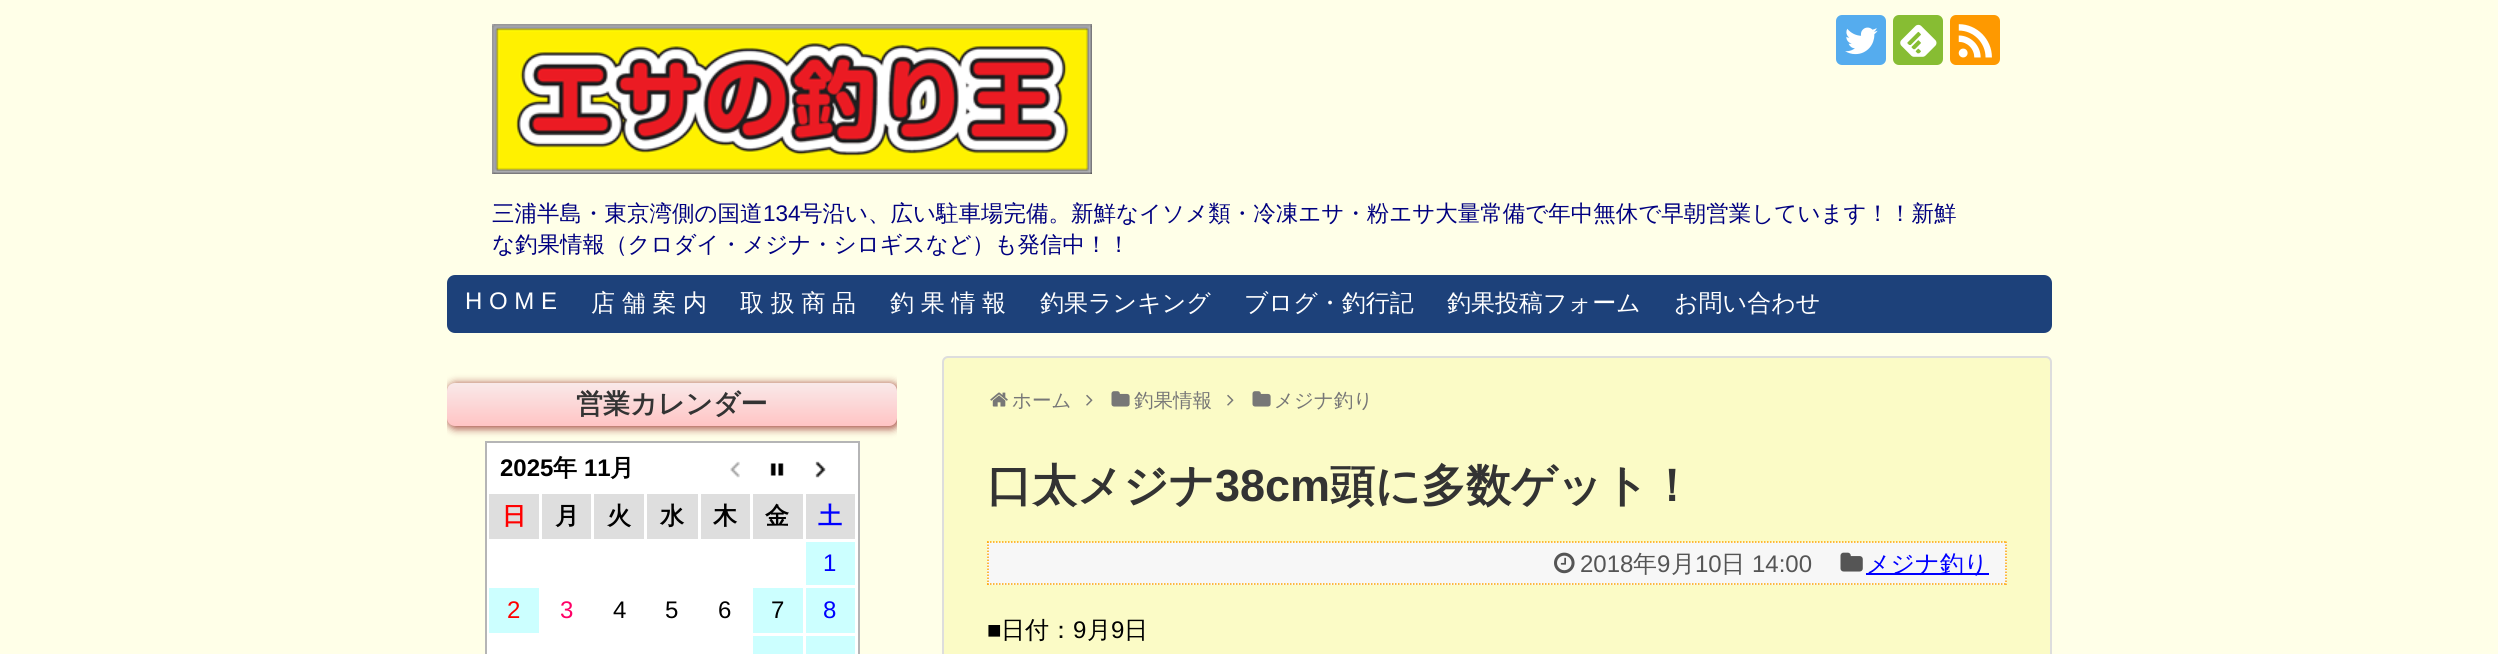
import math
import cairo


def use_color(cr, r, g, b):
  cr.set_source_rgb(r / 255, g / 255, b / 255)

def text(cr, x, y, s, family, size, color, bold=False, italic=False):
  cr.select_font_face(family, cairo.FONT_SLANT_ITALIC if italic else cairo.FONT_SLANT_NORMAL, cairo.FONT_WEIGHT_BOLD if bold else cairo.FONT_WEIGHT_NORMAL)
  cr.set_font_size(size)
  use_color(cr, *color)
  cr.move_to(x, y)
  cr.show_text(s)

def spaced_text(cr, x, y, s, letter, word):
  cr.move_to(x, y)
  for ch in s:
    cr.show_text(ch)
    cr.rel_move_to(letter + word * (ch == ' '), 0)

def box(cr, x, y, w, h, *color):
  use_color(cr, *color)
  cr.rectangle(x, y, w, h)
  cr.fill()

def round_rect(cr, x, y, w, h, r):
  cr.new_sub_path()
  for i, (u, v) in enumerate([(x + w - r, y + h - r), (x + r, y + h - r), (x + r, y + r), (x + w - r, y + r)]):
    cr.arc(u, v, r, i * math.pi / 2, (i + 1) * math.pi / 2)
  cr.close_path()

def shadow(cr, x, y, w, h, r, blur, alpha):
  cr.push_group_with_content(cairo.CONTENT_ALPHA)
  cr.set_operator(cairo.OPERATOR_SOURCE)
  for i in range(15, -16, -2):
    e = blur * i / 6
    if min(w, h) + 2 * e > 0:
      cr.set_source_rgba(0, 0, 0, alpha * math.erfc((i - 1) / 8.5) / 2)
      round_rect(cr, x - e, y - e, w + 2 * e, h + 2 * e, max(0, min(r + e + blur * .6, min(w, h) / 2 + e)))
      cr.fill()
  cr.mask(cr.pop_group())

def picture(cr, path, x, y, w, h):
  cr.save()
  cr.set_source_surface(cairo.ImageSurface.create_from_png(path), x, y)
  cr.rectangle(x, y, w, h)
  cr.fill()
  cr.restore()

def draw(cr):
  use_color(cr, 255, 255, 232)
  cr.paint()
  use_color(cr, 85, 172, 238)
  round_rect(cr, 1836, 15, 50, 50, 6)
  cr.fill()
  picture(cr, "img_01.png", 1845, 27, 33, 28)
  use_color(cr, 135, 189, 51)
  round_rect(cr, 1893, 15, 50, 50, 6)
  cr.fill()
  picture(cr, "img_02.png", 1900, 24, 37, 33)
  use_color(cr, 254, 153, 0)
  round_rect(cr, 1950, 15, 50, 50, 6)
  cr.fill()
  picture(cr, "img_03.png", 1958, 24, 34, 34)
  picture(cr, "img_04.png", 492, 24, 600, 150)
  use_color(cr, 29, 65, 122)
  round_rect(cr, 448, 276, 1603, 56, 7)
  cr.fill_preserve()
  cr.stroke()
  cr.save()
  cr.rectangle(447, 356, 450, 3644)
  cr.clip()
  use_color(cr, 128, 0, 0)
  shadow(cr, 447, 383, 453, 46, 9, 4, 0.65)
  cr.restore()
  gradient = cairo.LinearGradient(672, 382, 672, 426)
  gradient.add_color_stop_rgba(0, 0.976, 0.918, 0.918, 1)
  gradient.add_color_stop_rgba(1, 1, 0.769, 0.769, 1)
  cr.set_source(gradient)
  round_rect(cr, 447, 383, 450, 43, 8)
  cr.fill()
  use_color(cr, 255, 255, 255)
  cr.rectangle(486, 442, 373, 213)
  cr.fill_preserve()
  use_color(cr, 181, 181, 182)
  cr.stroke()
  picture(cr, "img_05.png", 730, 461, 10, 17)
  picture(cr, "img_06.png", 770, 463, 14, 13)
  picture(cr, "img_07.png", 815, 461, 11, 17)
  box(cr, 489, 494, 50, 45, 222, 222, 222)
  box(cr, 542, 494, 49, 45, 222, 222, 222)
  box(cr, 594, 494, 50, 45, 222, 222, 222)
  box(cr, 647, 494, 51, 45, 222, 222, 222)
  box(cr, 701, 494, 49, 45, 222, 222, 222)
  box(cr, 753, 494, 50, 45, 222, 222, 222)
  box(cr, 806, 494, 49, 45, 222, 222, 222)
  box(cr, 806, 542, 49, 43, 204, 255, 255)
  box(cr, 489, 588, 50, 45, 204, 255, 255)
  box(cr, 753, 588, 50, 45, 204, 255, 255)
  box(cr, 806, 588, 49, 45, 204, 255, 255)
  box(cr, 753, 636, 50, 18, 204, 255, 255)
  box(cr, 806, 636, 49, 18, 204, 255, 255)
  use_color(cr, 251, 251, 198)
  round_rect(cr, 943, 357, 1108, 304, 5)
  cr.fill_preserve()
  use_color(cr, 221, 221, 221)
  cr.stroke()
  picture(cr, "img_08.png", 990, 392, 18, 15)
  picture(cr, "img_09.png", 1086, 394, 7, 12)
  picture(cr, "img_10.png", 1111, 391, 19, 16)
  picture(cr, "img_09.png", 1227, 394, 7, 12)
  picture(cr, "img_10.png", 1252, 391, 19, 16)
  box(cr, 987, 542, 1020, 43, 247, 247, 247)
  cr.new_path()
  cr.move_to(987, 542)
  cr.line_to(2007, 542)
  use_color(cr, 255, 165, 0)
  cr.set_line_width(1.5)
  cr.set_dash([1.5, 1.5])
  cr.stroke()
  cr.new_path()
  cr.move_to(2006, 541.5)
  cr.line_to(2006, 585)
  cr.stroke()
  cr.new_path()
  cr.move_to(987, 584)
  cr.line_to(2007, 584)
  cr.stroke()
  cr.new_path()
  cr.move_to(988, 541.5)
  cr.line_to(988, 585)
  cr.stroke()
  picture(cr, "img_11.png", 1554, 552, 21, 22)
  picture(cr, "img_12.png", 1840, 552, 23, 20)
  box(cr, 1866, 573, 123, 2, 0, 0, 255)
  text(cr, 492, 221, "三浦半島・東京湾側の国道", "WenQuanYi Zen Hei Medium", 22.5, (0, 0, 128))
  text(cr, 763, 221, "134", "Liberation Sans", 22.5, (0, 0, 128))
  text(cr, 800, 221, "号沿い、広い駐車場完備。新鮮なイソメ類・冷凍エサ・粉エサ大量常備で年中無休で早朝営業しています！！新鮮", "WenQuanYi Zen Hei Medium", 22.5, (0, 0, 128))
  text(cr, 492, 252, "な釣果情報（クロダイ・メジナ・シロギスなど）も発信中！！", "WenQuanYi Zen Hei Medium", 22.5, (0, 0, 128))
  text(cr, 465, 309, "H O M E", "Liberation Sans", 24, (255, 255, 255))
  cr.select_font_face("WenQuanYi Zen Hei Medium")
  spaced_text(cr, 591, 311, "店 舗 案 内", 0, -0.5)
  spaced_text(cr, 740, 311, "取 扱 商 品", 0, -0.5)
  spaced_text(cr, 890, 311, "釣 果 情 報", 0, -0.5)
  text(cr, 1040, 311, "釣果ランキング", "WenQuanYi Zen Hei Medium", 24, (255, 255, 255))
  text(cr, 1244, 311, "ブログ・釣行記", "WenQuanYi Zen Hei Medium", 24, (255, 255, 255))
  text(cr, 1447, 311, "釣果投稿フォーム", "WenQuanYi Zen Hei Medium", 24, (255, 255, 255))
  text(cr, 1674, 311, "お問い合わせ", "WenQuanYi Zen Hei Medium", 24, (255, 255, 255))
  text(cr, 576, 413, "営業カレンダー", "WenQuanYi Zen Hei", 27, (51, 51, 51), bold=True)
  text(cr, 500, 476, "2025", "Liberation Sans", 24, (0, 0, 0), bold=True)
  text(cr, 553, 476, "年", "WenQuanYi Zen Hei", 24, (0, 0, 0), bold=True)
  text(cr, 584, 476, "11", "Liberation Sans", 24, (0, 0, 0), bold=True)
  text(cr, 610, 476, "月", "WenQuanYi Zen Hei", 24, (0, 0, 0), bold=True)
  text(cr, 502, 524, "日", "WenQuanYi Zen Hei", 24, (255, 0, 0), bold=True)
  text(cr, 555, 524, "月", "WenQuanYi Zen Hei", 24, (0, 0, 0), bold=True)
  text(cr, 607, 524, "火", "WenQuanYi Zen Hei", 24, (0, 0, 0), bold=True)
  text(cr, 660, 524, "水", "WenQuanYi Zen Hei", 24, (0, 0, 0), bold=True)
  text(cr, 713, 524, "木", "WenQuanYi Zen Hei", 24, (0, 0, 0), bold=True)
  text(cr, 765, 524, "金", "WenQuanYi Zen Hei", 24, (0, 0, 0), bold=True)
  text(cr, 818, 524, "土", "WenQuanYi Zen Hei", 24, (0, 0, 255), bold=True)
  text(cr, 823, 571, "1", "Liberation Sans", 24, (0, 0, 255))
  text(cr, 507, 618, "2", "Liberation Sans", 24, (255, 0, 0))
  text(cr, 560, 618, "3", "Liberation Sans", 24, (255, 0, 102))
  text(cr, 613, 618, "4", "Liberation Sans", 24, (0, 0, 0))
  text(cr, 665, 618, "5", "Liberation Sans", 24, (0, 0, 0))
  text(cr, 718, 618, "6", "Liberation Sans", 24, (0, 0, 0))
  text(cr, 771, 618, "7", "Liberation Sans", 24, (0, 0, 0))
  text(cr, 823, 618, "8", "Liberation Sans", 24, (0, 0, 255))
  text(cr, 1012, 407, "ホーム", "WenQuanYi Zen Hei Medium", 19.5, (119, 119, 119))
  text(cr, 1134, 407, "釣果情報", "WenQuanYi Zen Hei Medium", 19.5, (119, 119, 119))
  text(cr, 1274, 407, "メジナ釣り", "WenQuanYi Zen Hei Medium", 19.5, (119, 119, 119))
  text(cr, 987, 501, "口太メジナ", "WenQuanYi Zen Hei", 45, (51, 51, 51), bold=True)
  text(cr, 1215, 501, "38cm", "Liberation Sans", 45, (51, 51, 51), bold=True)
  text(cr, 1330, 501, "頭に多数ゲット！", "WenQuanYi Zen Hei", 45, (51, 51, 51), bold=True)
  text(cr, 1580, 572, "2018", "Liberation Sans", 24, (85, 85, 85))
  text(cr, 1633, 572, "年", "WenQuanYi Zen Hei Medium", 24, (85, 85, 85))
  text(cr, 1657, 572, "9", "Liberation Sans", 24, (85, 85, 85))
  text(cr, 1671, 572, "月", "WenQuanYi Zen Hei Medium", 24, (85, 85, 85))
  text(cr, 1695, 572, "10", "Liberation Sans", 24, (85, 85, 85))
  text(cr, 1721, 572, "日", "WenQuanYi Zen Hei Medium", 24, (85, 85, 85))
  text(cr, 1752, 572, "14:00", "Liberation Sans", 24, (85, 85, 85))
  text(cr, 1866, 572, "メジナ釣り", "WenQuanYi Zen Hei Medium", 24, (0, 0, 255))
  text(cr, 987, 638, "■", "Liberation Sans", 24, (0, 0, 0))
  text(cr, 1001, 638, "日付：", "WenQuanYi Zen Hei Medium", 24, (0, 0, 0))
  text(cr, 1073, 638, "9", "Liberation Sans", 24, (0, 0, 0))
  text(cr, 1087, 638, "月", "WenQuanYi Zen Hei Medium", 24, (0, 0, 0))
  text(cr, 1111, 638, "9", "Liberation Sans", 24, (0, 0, 0))
  text(cr, 1124, 638, "日", "WenQuanYi Zen Hei Medium", 24, (0, 0, 0))


surface = cairo.ImageSurface(cairo.FORMAT_RGB24, 2498, 654)
cr = cairo.Context(surface)
options = cairo.FontOptions()
options.set_hint_metrics(cairo.HINT_METRICS_OFF)
options.set_hint_style(cairo.HINT_STYLE_NONE)
cr.set_font_options(options)
cr.set_miter_limit(4)
draw(cr)
surface.write_to_png("out.png")
